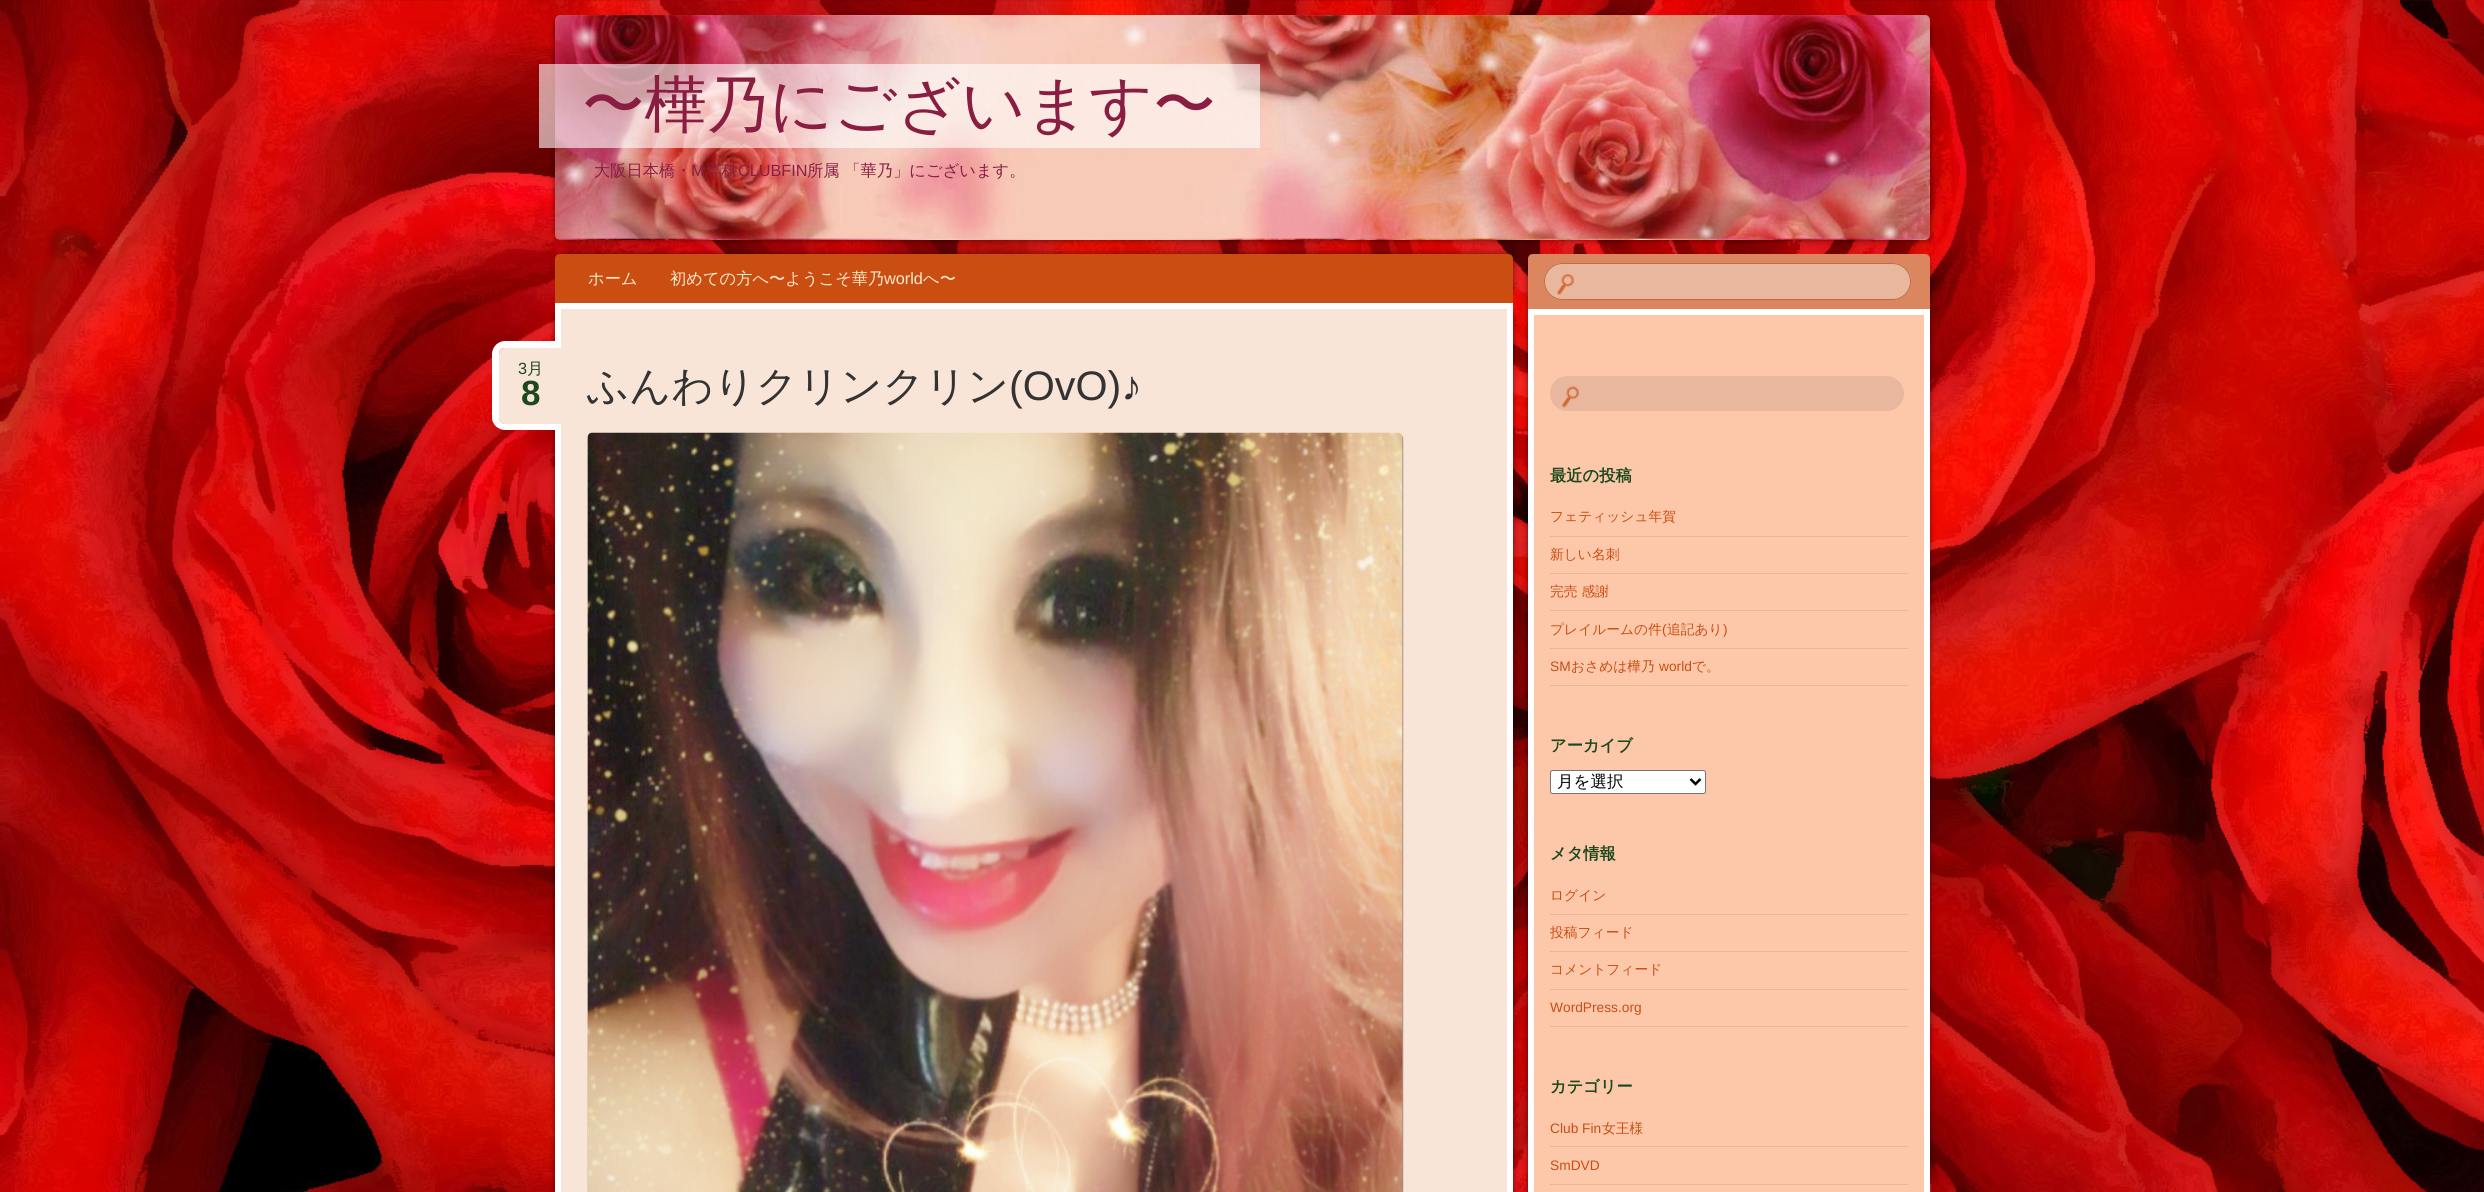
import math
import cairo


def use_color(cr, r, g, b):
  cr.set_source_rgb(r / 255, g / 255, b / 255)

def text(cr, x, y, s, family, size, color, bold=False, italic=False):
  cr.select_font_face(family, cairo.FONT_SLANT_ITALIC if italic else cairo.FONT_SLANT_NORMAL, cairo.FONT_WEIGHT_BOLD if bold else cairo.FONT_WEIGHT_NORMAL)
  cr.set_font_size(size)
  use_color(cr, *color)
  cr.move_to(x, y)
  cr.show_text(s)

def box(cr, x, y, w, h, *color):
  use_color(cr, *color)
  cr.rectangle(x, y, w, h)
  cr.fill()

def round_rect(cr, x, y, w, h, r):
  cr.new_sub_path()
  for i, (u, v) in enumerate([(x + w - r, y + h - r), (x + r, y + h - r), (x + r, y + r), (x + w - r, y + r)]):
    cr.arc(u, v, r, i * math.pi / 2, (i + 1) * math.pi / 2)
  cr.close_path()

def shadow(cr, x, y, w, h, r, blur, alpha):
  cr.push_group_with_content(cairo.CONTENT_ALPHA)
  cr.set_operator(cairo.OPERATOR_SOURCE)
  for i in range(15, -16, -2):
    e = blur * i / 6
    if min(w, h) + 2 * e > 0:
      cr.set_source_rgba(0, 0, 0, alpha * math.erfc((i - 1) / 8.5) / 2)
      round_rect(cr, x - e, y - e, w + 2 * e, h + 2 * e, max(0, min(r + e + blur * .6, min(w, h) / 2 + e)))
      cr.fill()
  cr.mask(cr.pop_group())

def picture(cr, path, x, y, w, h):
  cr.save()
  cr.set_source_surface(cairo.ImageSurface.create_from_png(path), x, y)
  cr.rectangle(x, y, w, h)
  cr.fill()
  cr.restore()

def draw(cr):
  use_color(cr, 255, 255, 255)
  cr.paint()
  picture(cr, "img_01.png", 0, 0, 2484, 1192)
  use_color(cr, 0, 0, 0)
  shadow(cr, 555, 21, 1363, 213, 0, 3, 0.5)
  shadow(cr, 568, 28, 1362, 212, 0, 3, 0.5)
  picture(cr, "img_02.png", 555, 15, 1375, 225)
  cr.set_source_rgba(1, 1, 1, 0.6)
  cr.rectangle(539, 64, 721, 84)
  cr.fill()
  use_color(cr, 0, 0, 0)
  shadow(cr, 568, 254, 945, 36, 0, 3, 0.5)
  use_color(cr, 202, 77, 17)
  cr.new_path()
  cr.move_to(560, 254)
  cr.line_to(1508, 254)
  cr.curve_to(1511, 254, 1513, 256, 1513, 259)
  cr.line_to(1513, 303)
  cr.line_to(555, 303)
  cr.line_to(555, 259)
  cr.curve_to(555, 256, 557, 254, 560, 254)
  cr.close_path()
  cr.fill()
  use_color(cr, 0, 0, 0)
  shadow(cr, 555, 315, 945, 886, 0, 3, 0.5)
  shadow(cr, 568, 315, 945, 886, 0, 3, 0.5)
  use_color(cr, 249, 228, 216)
  cr.rectangle(558, 306, 952, 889)
  cr.fill_preserve()
  use_color(cr, 255, 255, 255)
  cr.set_line_width(6)
  cr.stroke()
  use_color(cr, 249, 228, 216)
  cr.new_path()
  cr.move_to(505, 348)
  cr.line_to(561, 348)
  cr.line_to(561, 424)
  cr.line_to(505, 424)
  cr.curve_to(501.5, 424, 499, 421.5, 499, 418)
  cr.line_to(499, 354)
  cr.curve_to(499, 350.5, 501.5, 348, 505, 348)
  cr.close_path()
  cr.fill()
  use_color(cr, 255, 255, 255)
  cr.set_fill_rule(cairo.FILL_RULE_EVEN_ODD)
  cr.new_path()
  cr.move_to(505, 341)
  cr.line_to(561, 341)
  cr.line_to(561, 430)
  cr.line_to(505, 430)
  cr.curve_to(498, 430, 492, 424, 492, 418)
  cr.line_to(492, 354)
  cr.curve_to(492, 347, 498, 341, 505, 341)
  cr.close_path()
  cr.move_to(505, 348)
  cr.line_to(561, 348)
  cr.line_to(561, 424)
  cr.line_to(505, 424)
  cr.curve_to(502, 424, 499, 421, 499, 418)
  cr.line_to(499, 354)
  cr.curve_to(499, 350, 502, 348, 505, 348)
  cr.close_path()
  cr.fill()
  use_color(cr, 0, 0, 0)
  shadow(cr, 588, 434, 815, 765, 5, 0.5, 0.4)
  picture(cr, "img_03.png", 587, 432, 816, 760)
  shadow(cr, 1528, 266, 390, 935, 0, 3, 0.5)
  shadow(cr, 1540, 266, 390, 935, 0, 3, 0.5)
  use_color(cr, 219, 134, 94)
  cr.new_path()
  cr.move_to(1533, 254)
  cr.line_to(1925, 254)
  cr.curve_to(1928, 254, 1930, 256, 1930, 259)
  cr.line_to(1930, 309)
  cr.line_to(1528, 309)
  cr.line_to(1528, 259)
  cr.curve_to(1528, 256, 1530, 254, 1533, 254)
  cr.close_path()
  cr.fill()
  use_color(cr, 233, 182, 158)
  round_rect(cr, 1544, 263, 367, 37, 18.5)
  cr.fill()
  picture(cr, "img_04.png", 1557, 273, 17, 22)
  round_rect(cr, 1544.5, 263.5, 366, 36, 18)
  use_color(cr, 190, 109, 71)
  cr.set_line_width(1)
  cr.stroke()
  use_color(cr, 253, 200, 170)
  cr.rectangle(1531, 312, 396, 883)
  cr.fill_preserve()
  use_color(cr, 255, 255, 255)
  cr.set_line_width(6)
  cr.stroke()
  use_color(cr, 233, 182, 158)
  round_rect(cr, 1550, 376, 354, 35, 17.5)
  cr.fill()
  picture(cr, "img_05.png", 1562, 386, 17, 22)
  box(cr, 1550, 536, 358, 1, 233, 181, 152)
  box(cr, 1550, 573, 358, 1, 233, 181, 152)
  box(cr, 1550, 610, 358, 1, 233, 181, 152)
  box(cr, 1550, 648, 358, 1, 233, 181, 152)
  box(cr, 1550, 685, 358, 1, 233, 181, 152)
  use_color(cr, 255, 255, 255)
  round_rect(cr, 1550.5, 770.5, 155, 23, 2)
  cr.fill_preserve()
  use_color(cr, 118, 118, 118)
  cr.set_line_width(1)
  cr.stroke()
  cr.new_path()
  cr.move_to(1690.5, 779)
  cr.line_to(1695.5, 784)
  cr.line_to(1700.5, 779)
  use_color(cr, 0, 0, 0)
  cr.set_line_width(2.5)
  cr.stroke()
  box(cr, 1550, 914, 358, 1, 233, 181, 152)
  box(cr, 1550, 951, 358, 1, 233, 181, 152)
  box(cr, 1550, 989, 358, 1, 233, 181, 152)
  box(cr, 1550, 1026, 358, 1, 233, 181, 152)
  box(cr, 1550, 1146, 358, 1, 233, 181, 152)
  box(cr, 1550, 1184, 358, 1, 233, 181, 152)
  text(cr, 582, 126, "〜樺乃にございます〜", "WenQuanYi Zen Hei Medium", 62.5, (137, 30, 66))
  text(cr, 594, 176, "大阪日本橋・", "WenQuanYi Zen Hei Medium", 16.25, (137, 30, 66))
  text(cr, 691, 176, "M", "Liberation Sans", 16.25, (137, 30, 66))
  text(cr, 705, 176, "専科", "WenQuanYi Zen Hei Medium", 16.25, (137, 30, 66))
  text(cr, 738, 176, "CLUBFIN", "Liberation Sans", 16.25, (137, 30, 66))
  text(cr, 807, 176, "所属 「華乃」にございます。", "WenQuanYi Zen Hei Medium", 16.25, (137, 30, 66))
  text(cr, 588, 284, "ホーム", "WenQuanYi Zen Hei Medium", 16.25, (255, 235, 206))
  text(cr, 670, 284, "初めての方へ〜ようこそ華乃", "WenQuanYi Zen Hei Medium", 16.25, (255, 235, 206))
  text(cr, 884, 284, "world", "Liberation Sans", 16.25, (255, 235, 206))
  text(cr, 923, 284, "へ〜", "WenQuanYi Zen Hei Medium", 16.25, (255, 235, 206))
  text(cr, 518, 374, "3", "Liberation Sans", 16.25, (28, 72, 29))
  text(cr, 527, 374, "月", "WenQuanYi Zen Hei Medium", 16.25, (28, 72, 29))
  text(cr, 521, 405, "8", "Liberation Sans", 35, (28, 72, 29), bold=True)
  text(cr, 587, 400, "ふんわりクリンクリン", "WenQuanYi Zen Hei Medium", 41.25, (51, 51, 51))
  text(cr, 1009, 400, "(OvO)♪", "Liberation Sans", 41.25, (51, 51, 51))
  text(cr, 1550, 481, "最近の投稿", "WenQuanYi Zen Hei", 16.25, (28, 72, 29), bold=True)
  text(cr, 1550, 521, "フェティッシュ年賀", "WenQuanYi Zen Hei Medium", 13.75, (202, 77, 17))
  text(cr, 1550, 559, "新しい名刺", "WenQuanYi Zen Hei Medium", 13.75, (202, 77, 17))
  text(cr, 1550, 596, "完売 感謝", "WenQuanYi Zen Hei Medium", 13.75, (202, 77, 17))
  text(cr, 1550, 634, "プレイルームの件", "WenQuanYi Zen Hei Medium", 13.75, (202, 77, 17))
  text(cr, 1662, 634, "(", "Liberation Sans", 13.75, (202, 77, 17))
  text(cr, 1667, 634, "追記あり", "WenQuanYi Zen Hei Medium", 13.75, (202, 77, 17))
  text(cr, 1723, 634, ")", "Liberation Sans", 13.75, (202, 77, 17))
  text(cr, 1550, 671, "SM", "Liberation Sans", 13.75, (202, 77, 17))
  text(cr, 1571, 671, "おさめは樺乃", "WenQuanYi Zen Hei Medium", 13.75, (202, 77, 17))
  text(cr, 1659, 671, "world", "Liberation Sans", 13.75, (202, 77, 17))
  text(cr, 1692, 671, "で。", "WenQuanYi Zen Hei Medium", 13.75, (202, 77, 17))
  text(cr, 1550, 751, "アーカイブ", "WenQuanYi Zen Hei", 16.25, (28, 72, 29), bold=True)
  text(cr, 1557, 787, "月を選択", "WenQuanYi Zen Hei Medium", 16.5, (0, 0, 0))
  text(cr, 1550, 859, "メタ情報", "WenQuanYi Zen Hei", 16.25, (28, 72, 29), bold=True)
  text(cr, 1550, 900, "ログイン", "WenQuanYi Zen Hei Medium", 13.75, (202, 77, 17))
  text(cr, 1550, 937, "投稿フィード", "WenQuanYi Zen Hei Medium", 13.75, (202, 77, 17))
  text(cr, 1550, 974, "コメントフィード", "WenQuanYi Zen Hei Medium", 13.75, (202, 77, 17))
  text(cr, 1550, 1012, "WordPress.org", "Liberation Sans", 13.75, (202, 77, 17))
  text(cr, 1550, 1092, "カテゴリー", "WenQuanYi Zen Hei", 16.25, (28, 72, 29), bold=True)
  text(cr, 1550, 1133, "Club Fin", "Liberation Sans", 13.75, (202, 77, 17))
  text(cr, 1602, 1133, "女王様", "WenQuanYi Zen Hei Medium", 13.75, (202, 77, 17))
  text(cr, 1550, 1170, "SmDVD", "Liberation Sans", 13.75, (202, 77, 17))


surface = cairo.ImageSurface(cairo.FORMAT_RGB24, 2484, 1192)
cr = cairo.Context(surface)
options = cairo.FontOptions()
options.set_hint_metrics(cairo.HINT_METRICS_OFF)
options.set_hint_style(cairo.HINT_STYLE_NONE)
cr.set_font_options(options)
cr.set_miter_limit(4)
draw(cr)
surface.write_to_png("out.png")
